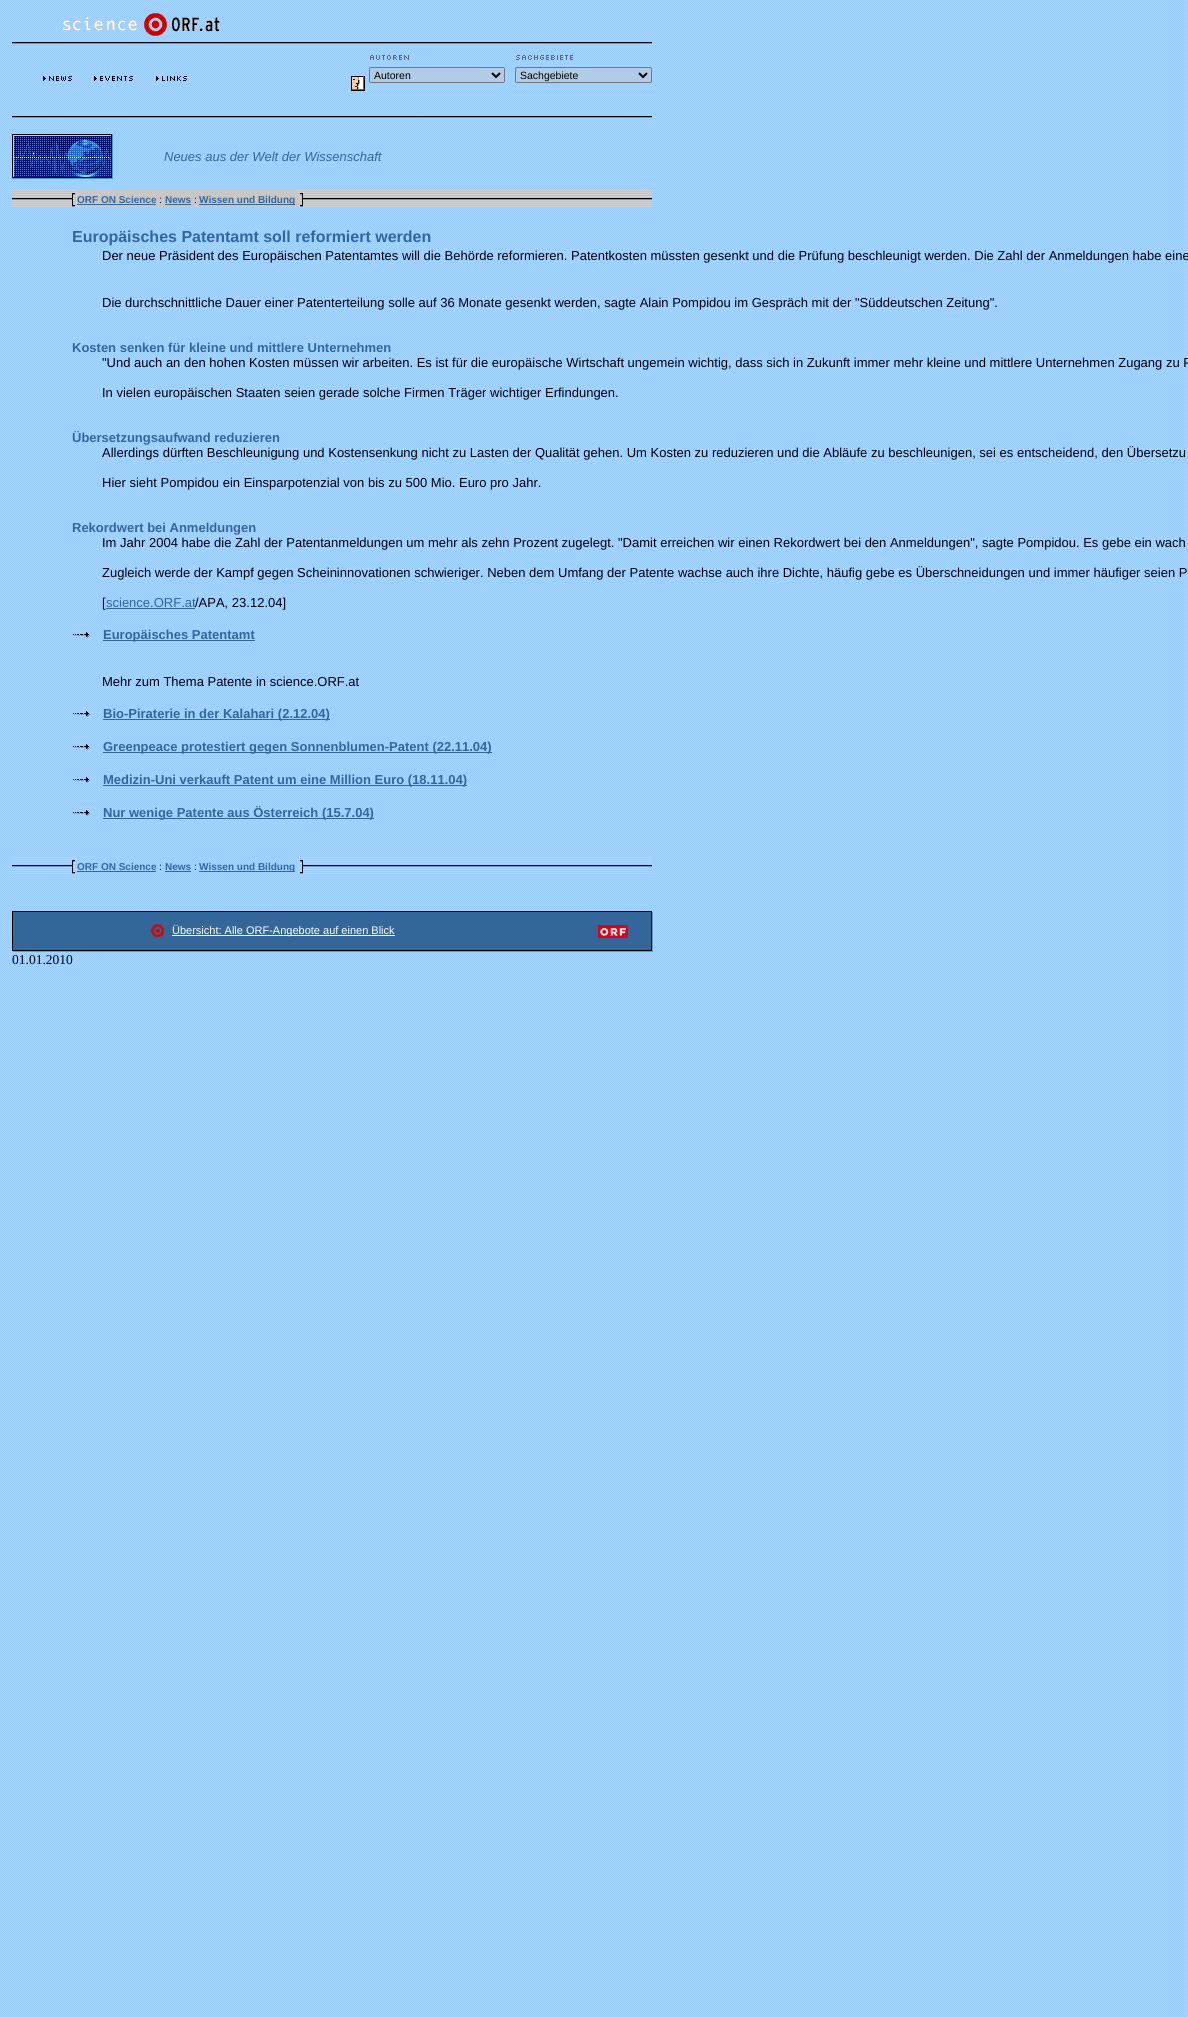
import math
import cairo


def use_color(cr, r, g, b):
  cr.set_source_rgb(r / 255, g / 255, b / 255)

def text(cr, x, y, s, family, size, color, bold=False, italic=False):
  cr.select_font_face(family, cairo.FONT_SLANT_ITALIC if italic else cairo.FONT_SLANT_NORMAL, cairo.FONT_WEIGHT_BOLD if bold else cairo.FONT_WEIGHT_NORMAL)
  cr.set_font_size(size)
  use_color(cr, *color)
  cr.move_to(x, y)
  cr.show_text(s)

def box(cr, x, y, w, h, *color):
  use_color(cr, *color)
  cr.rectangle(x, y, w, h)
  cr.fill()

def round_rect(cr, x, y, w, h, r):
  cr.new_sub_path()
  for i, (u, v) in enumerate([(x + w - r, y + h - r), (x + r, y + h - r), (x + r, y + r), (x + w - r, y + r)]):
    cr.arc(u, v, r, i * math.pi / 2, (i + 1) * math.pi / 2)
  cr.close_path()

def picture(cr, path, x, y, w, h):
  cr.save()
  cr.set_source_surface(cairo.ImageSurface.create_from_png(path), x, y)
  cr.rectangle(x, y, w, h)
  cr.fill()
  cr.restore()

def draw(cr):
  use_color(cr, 255, 255, 255)
  cr.paint()
  picture(cr, "img_01.png", 0, 0, 1188, 2017)
  picture(cr, "img_02.png", 63, 17, 74, 14)
  picture(cr, "img_03.png", 144, 13, 76, 23)
  picture(cr, "img_04.png", 12, 42, 640, 2)
  picture(cr, "img_05.png", 43, 76, 29, 5)
  picture(cr, "img_06.png", 94, 76, 39, 5)
  picture(cr, "img_07.png", 156, 76, 31, 5)
  picture(cr, "img_08.png", 370, 55, 39, 5)
  picture(cr, "img_09.png", 516, 55, 57, 5)
  picture(cr, "img_10.png", 351, 76, 14, 15)
  use_color(cr, 177, 204, 231)
  round_rect(cr, 369.5, 67.5, 135, 15, 1.5)
  cr.fill_preserve()
  use_color(cr, 118, 118, 118)
  cr.set_line_width(1)
  cr.stroke()
  cr.new_path()
  cr.move_to(492, 73)
  cr.line_to(496, 77)
  cr.line_to(500, 73)
  use_color(cr, 0, 0, 0)
  cr.set_line_width(2)
  cr.stroke()
  use_color(cr, 177, 204, 231)
  round_rect(cr, 515.5, 67.5, 136, 15, 1.5)
  cr.fill_preserve()
  use_color(cr, 118, 118, 118)
  cr.set_line_width(1)
  cr.stroke()
  cr.new_path()
  cr.move_to(639, 73)
  cr.line_to(643, 77)
  cr.line_to(647, 73)
  use_color(cr, 0, 0, 0)
  cr.set_line_width(2)
  cr.stroke()
  picture(cr, "img_11.png", 12, 116, 85, 2)
  picture(cr, "img_12.png", 97, 116, 52, 2)
  picture(cr, "img_13.png", 149, 116, 25, 2)
  picture(cr, "img_12.png", 174, 116, 52, 2)
  picture(cr, "img_14.png", 226, 116, 192, 2)
  picture(cr, "img_15.png", 418, 116, 234, 2)
  picture(cr, "img_16.png", 12, 134, 101, 45)
  picture(cr, "img_17.png", 12, 190, 640, 18)
  picture(cr, "img_18.png", 72, 193, 5, 14)
  picture(cr, "img_19.png", 77, 190, 88, 18)
  box(cr, 77, 204, 79, 1, 51, 102, 153)
  picture(cr, "img_20.png", 165, 190, 34, 18)
  box(cr, 165, 204, 26, 1, 51, 102, 153)
  picture(cr, "img_21.png", 199, 190, 99, 18)
  box(cr, 199, 204, 96, 1, 51, 102, 153)
  picture(cr, "img_22.png", 298, 193, 5, 14)
  box(cr, 106, 608, 89, 1, 51, 102, 153)
  picture(cr, "img_23.png", 73, 632, 17, 6)
  box(cr, 103, 640, 152, 1, 51, 102, 153)
  picture(cr, "img_24.png", 73, 711, 17, 6)
  box(cr, 103, 719, 227, 1, 51, 102, 153)
  picture(cr, "img_23.png", 73, 744, 17, 6)
  box(cr, 103, 752, 389, 1, 51, 102, 153)
  picture(cr, "img_24.png", 73, 777, 17, 6)
  box(cr, 103, 785, 364, 1, 51, 102, 153)
  picture(cr, "img_23.png", 73, 810, 17, 6)
  box(cr, 103, 818, 271, 1, 51, 102, 153)
  picture(cr, "img_17.png", 12, 857, 640, 18)
  picture(cr, "img_18.png", 72, 860, 5, 14)
  picture(cr, "img_19.png", 77, 857, 88, 18)
  box(cr, 77, 871, 79, 1, 51, 102, 153)
  picture(cr, "img_20.png", 165, 857, 34, 18)
  box(cr, 165, 871, 26, 1, 51, 102, 153)
  picture(cr, "img_21.png", 199, 857, 99, 18)
  box(cr, 199, 871, 96, 1, 51, 102, 153)
  picture(cr, "img_22.png", 298, 860, 5, 14)
  box(cr, 12, 911, 640, 1, 0, 0, 0)
  box(cr, 12, 912, 1, 39, 0, 0, 0)
  box(cr, 13, 912, 638, 38, 51, 102, 153)
  picture(cr, "img_25.png", 151, 924, 13, 13)
  box(cr, 172, 935, 223, 1, 255, 255, 255)
  picture(cr, "img_26.png", 598, 925, 30, 13)
  box(cr, 651, 912, 1, 38, 0, 0, 0)
  box(cr, 652, 912, 1, 39, 102, 153, 204)
  box(cr, 13, 950, 639, 1, 0, 0, 0)
  box(cr, 13, 951, 640, 1, 102, 153, 204)
  text(cr, 374, 79, "Autoren", "Liberation Sans", 10.5, (0, 0, 0))
  text(cr, 520, 79, "Sachgebiete", "Liberation Sans", 10.5, (0, 0, 0))
  text(cr, 164, 161, "Neues aus der Welt der Wissenschaft", "Liberation Sans", 13, (51, 102, 153), italic=True)
  text(cr, 77, 203, "ORF ON Science", "Liberation Sans", 10, (51, 102, 153), bold=True)
  text(cr, 159, 203, ":", "Liberation Sans", 10, (0, 0, 0))
  text(cr, 165, 203, "News", "Liberation Sans", 10, (51, 102, 153), bold=True)
  text(cr, 194, 203, ":", "Liberation Sans", 10, (0, 0, 0))
  text(cr, 199, 203, "Wissen und Bildung", "Liberation Sans", 10, (51, 102, 153), bold=True)
  text(cr, 72, 242, "Europäisches Patentamt soll reformiert werden", "Liberation Sans", 16, (51, 102, 153), bold=True)
  text(cr, 102, 260, "Der neue Präsident des Europäischen Patentamtes will die Behörde reformieren. Patentkosten müssten gesenkt und die Prüfung beschleunigt werden. Die Zahl der Anmeldungen habe eine", "Liberation Sans", 13, (0, 0, 0))
  text(cr, 102, 307, "Die durchschnittliche Dauer einer Patenterteilung solle auf 36 Monate gesenkt werden, sagte Alain Pompidou im Gespräch mit der \"Süddeutschen Zeitung\".", "Liberation Sans", 13, (0, 0, 0))
  text(cr, 72, 352, "Kosten senken für kleine und mittlere Unternehmen", "Liberation Sans", 13, (51, 102, 153), bold=True)
  text(cr, 102, 367, "\"Und auch an den hohen Kosten müssen wir arbeiten. Es ist für die europäische Wirtschaft ungemein wichtig, dass sich in Zukunft immer mehr kleine und mittlere Unternehmen Zugang zu P", "Liberation Sans", 13, (0, 0, 0))
  text(cr, 102, 397, "In vielen europäischen Staaten seien gerade solche Firmen Träger wichtiger Erfindungen.", "Liberation Sans", 13, (0, 0, 0))
  text(cr, 72, 442, "Übersetzungsaufwand reduzieren", "Liberation Sans", 13, (51, 102, 153), bold=True)
  text(cr, 102, 457, "Allerdings dürften Beschleunigung und Kostensenkung nicht zu Lasten der Qualität gehen. Um Kosten zu reduzieren und die Abläufe zu beschleunigen, sei es entscheidend, den Übersetzu", "Liberation Sans", 13, (0, 0, 0))
  text(cr, 102, 487, "Hier sieht Pompidou ein Einsparpotenzial von bis zu 500 Mio. Euro pro Jahr.", "Liberation Sans", 13, (0, 0, 0))
  text(cr, 72, 532, "Rekordwert bei Anmeldungen", "Liberation Sans", 13, (51, 102, 153), bold=True)
  text(cr, 102, 547, "Im Jahr 2004 habe die Zahl der Patentanmeldungen um mehr als zehn Prozent zugelegt. \"Damit erreichen wir einen Rekordwert bei den Anmeldungen\", sagte Pompidou. Es gebe ein wach", "Liberation Sans", 13, (0, 0, 0))
  text(cr, 102, 577, "Zugleich werde der Kampf gegen Scheininnovationen schwieriger. Neben dem Umfang der Patente wachse auch ihre Dichte, häufig gebe es Überschneidungen und immer häufiger seien P", "Liberation Sans", 13, (0, 0, 0))
  text(cr, 102, 607, "[", "Liberation Sans", 13, (0, 0, 0))
  text(cr, 106, 607, "science.ORF.at", "Liberation Sans", 13, (51, 102, 153))
  text(cr, 195, 607, "/APA, 23.12.04]", "Liberation Sans", 13, (0, 0, 0))
  text(cr, 103, 639, "Europäisches Patentamt", "Liberation Sans", 13, (51, 102, 153), bold=True)
  text(cr, 102, 686, "Mehr zum Thema Patente in science.ORF.at", "Liberation Sans", 13, (0, 0, 0))
  text(cr, 103, 718, "Bio-Piraterie in der Kalahari (2.12.04)", "Liberation Sans", 13, (51, 102, 153), bold=True)
  text(cr, 103, 751, "Greenpeace protestiert gegen Sonnenblumen-Patent (22.11.04)", "Liberation Sans", 13, (51, 102, 153), bold=True)
  text(cr, 103, 784, "Medizin-Uni verkauft Patent um eine Million Euro (18.11.04)", "Liberation Sans", 13, (51, 102, 153), bold=True)
  text(cr, 103, 817, "Nur wenige Patente aus Österreich (15.7.04)", "Liberation Sans", 13, (51, 102, 153), bold=True)
  text(cr, 77, 870, "ORF ON Science", "Liberation Sans", 10, (51, 102, 153), bold=True)
  text(cr, 159, 870, ":", "Liberation Sans", 10, (0, 0, 0))
  text(cr, 165, 870, "News", "Liberation Sans", 10, (51, 102, 153), bold=True)
  text(cr, 194, 870, ":", "Liberation Sans", 10, (0, 0, 0))
  text(cr, 199, 870, "Wissen und Bildung", "Liberation Sans", 10, (51, 102, 153), bold=True)
  text(cr, 172, 934, "Übersicht: Alle ORF-Angebote auf einen Blick", "Liberation Sans", 11, (255, 255, 255))
  text(cr, 12, 964, "01.01.2010", "Liberation Serif", 13.5, (0, 0, 0))


surface = cairo.ImageSurface(cairo.FORMAT_RGB24, 1188, 2017)
cr = cairo.Context(surface)
options = cairo.FontOptions()
options.set_hint_metrics(cairo.HINT_METRICS_OFF)
options.set_hint_style(cairo.HINT_STYLE_NONE)
cr.set_font_options(options)
cr.set_miter_limit(4)
draw(cr)
surface.write_to_png("out.png")
